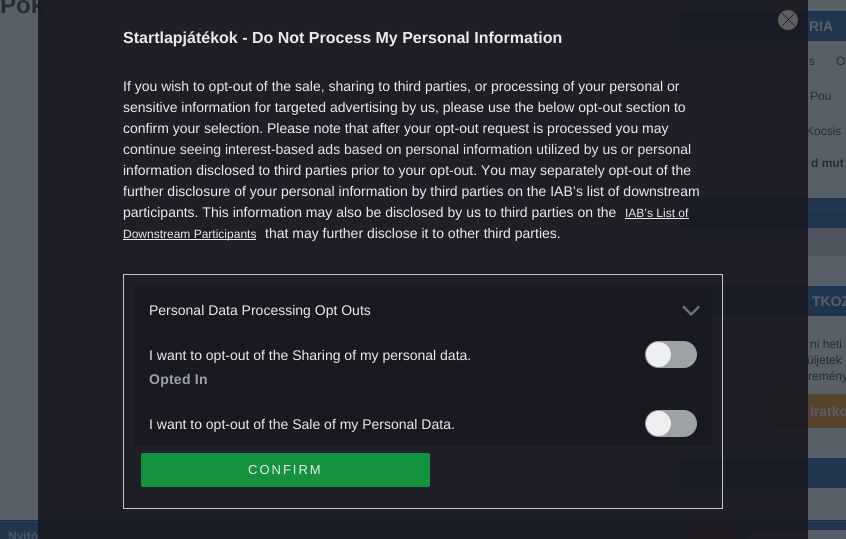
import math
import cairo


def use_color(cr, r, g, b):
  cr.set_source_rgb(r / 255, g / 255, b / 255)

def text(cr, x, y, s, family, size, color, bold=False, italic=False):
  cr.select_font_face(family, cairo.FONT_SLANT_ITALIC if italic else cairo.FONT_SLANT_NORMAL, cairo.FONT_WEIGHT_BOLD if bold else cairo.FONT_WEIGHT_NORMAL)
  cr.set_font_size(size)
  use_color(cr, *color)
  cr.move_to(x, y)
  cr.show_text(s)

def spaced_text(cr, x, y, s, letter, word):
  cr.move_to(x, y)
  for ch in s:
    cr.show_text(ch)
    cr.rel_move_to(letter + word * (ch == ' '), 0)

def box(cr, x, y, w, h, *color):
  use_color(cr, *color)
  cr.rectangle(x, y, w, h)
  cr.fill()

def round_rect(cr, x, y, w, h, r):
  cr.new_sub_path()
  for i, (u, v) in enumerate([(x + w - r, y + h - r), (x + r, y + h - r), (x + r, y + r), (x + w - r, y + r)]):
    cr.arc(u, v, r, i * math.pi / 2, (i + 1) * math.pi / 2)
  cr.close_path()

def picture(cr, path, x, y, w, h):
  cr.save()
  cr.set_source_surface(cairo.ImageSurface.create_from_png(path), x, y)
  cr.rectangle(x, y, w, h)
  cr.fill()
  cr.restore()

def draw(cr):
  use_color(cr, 89, 95, 103)
  cr.paint()
  use_color(cr, 86, 92, 100)
  round_rect(cr, 468, -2, 192, 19, 2)
  cr.fill()
  picture(cr, "img_01.png", 475, 2, 10, 7)
  picture(cr, "img_02.png", 680, 11, 166, 30)
  picture(cr, "img_02.png", 680, 198, 166, 30)
  box(cr, 680, 228, 166, 28, 80, 86, 95)
  picture(cr, "img_02.png", 680, 286, 166, 30)
  use_color(cr, 87, 68, 46)
  round_rect(cr, 770, 394, 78, 34, 2)
  cr.fill()
  picture(cr, "img_02.png", 680, 458, 166, 30)
  picture(cr, "img_03.png", 0, 520, 846, 19)
  picture(cr, "img_04.png", 688, 525, 50, 14)
  text(cr, 0, 13, "Pók", "Liberation Sans", 24, (38, 44, 52), bold=True)
  text(cr, 809, 31, "RIA", "Liberation Sans", 14, (89, 95, 103), bold=True)
  text(cr, 809, 65, "s", "Liberation Sans", 12, (38, 44, 52))
  text(cr, 836, 65, "O", "Liberation Sans", 12, (38, 44, 52))
  text(cr, 810, 100, "Pou", "Liberation Sans", 12, (38, 44, 52))
  text(cr, 806, 135, "Kocsis", "Liberation Sans", 12, (38, 44, 52))
  text(cr, 811, 167, "d mut", "Liberation Sans", 12, (38, 44, 52), bold=True)
  text(cr, 812, 306, "TKOZ", "Liberation Sans", 14, (89, 95, 103), bold=True)
  text(cr, 810, 348, "ni heti", "Liberation Sans", 12, (38, 44, 52))
  text(cr, 807, 364, "üljetek", "Liberation Sans", 12, (38, 44, 52))
  text(cr, 808, 380, "remény", "Liberation Sans", 12, (38, 44, 52))
  text(cr, 810, 416, "iratko", "Liberation Sans", 14, (89, 95, 103), bold=True)
  text(cr, 8, 540, "Nyitó", "Liberation Sans", 12, (76, 86, 100), bold=True)
  cr.set_source_rgba(0.098, 0.098, 0.133, 0.9)
  cr.rectangle(38, 0, 770, 539)
  cr.fill()
  cr.set_source_rgba(0.4, 0.4, 0.4, 0.9)
  cr.arc(788, 20, 10, 0, 2 * math.pi)
  cr.fill()
  cr.new_path()
  cr.move_to(782.5, 13.5)
  cr.line_to(794.5, 25.5)
  cr.move_to(794.5, 13.5)
  cr.line_to(782.5, 25.5)
  use_color(cr, 9, 9, 10)
  cr.set_line_width(0.5)
  cr.set_line_cap(cairo.LINE_CAP_ROUND)
  cr.set_line_join(cairo.LINE_JOIN_ROUND)
  cr.stroke()
  text(cr, 123, 43, "Startlapjátékok - Do Not Process My Personal Information", "Liberation Sans", 16, (235, 235, 236), bold=True)
  text(cr, 123, 91, "If you wish to opt-out of the sale, sharing to third parties, or processing of your personal or", "Liberation Sans", 14, (235, 235, 236))
  text(cr, 123, 112, "sensitive information for targeted advertising by us, please use the below opt-out section to", "Liberation Sans", 14, (235, 235, 236))
  text(cr, 123, 133, "confirm your selection. Please note that after your opt-out request is processed you may", "Liberation Sans", 14, (235, 235, 236))
  text(cr, 123, 154, "continue seeing interest-based ads based on personal information utilized by us or personal", "Liberation Sans", 14, (229, 229, 230))
  text(cr, 123, 175, "information disclosed to third parties prior to your opt-out. You may separately opt-out of the", "Liberation Sans", 14, (235, 235, 236))
  text(cr, 123, 196, "further disclosure of your personal information by third parties on the IAB’s list of downstream", "Liberation Sans", 14, (235, 235, 236))
  text(cr, 123, 217, "participants. This information may also be disclosed by us to third parties on the", "Liberation Sans", 14, (235, 235, 236))
  text(cr, 625, 217, "IAB’s List of", "Liberation Sans", 12, (229, 229, 230))
  cr.set_source_rgba(0.984, 0.984, 0.984, 0.9)
  cr.rectangle(625, 218, 64, 1)
  cr.fill()
  box(cr, 123, 239, 133, 1, 235, 235, 236)
  text(cr, 123, 238, "Downstream Participants", "Liberation Sans", 12, (235, 235, 236))
  text(cr, 265, 238, "that may further disclose it to other third parties.", "Liberation Sans", 14, (235, 235, 236))
  cr.rectangle(123.5, 274.5, 599, 234)
  cr.set_source_rgba(0.847, 0.847, 0.847, 0.9)
  cr.set_line_width(1)
  cr.set_line_cap(cairo.LINE_CAP_BUTT)
  cr.set_line_join(cairo.LINE_JOIN_MITER)
  cr.stroke()
  cr.set_source_rgba(0.098, 0.098, 0.133, 0.9)
  cr.rectangle(134, 285, 578, 161)
  cr.fill()
  text(cr, 149, 315, "Personal Data Processing Opt Outs", "Liberation Sans", 14, (235, 235, 236))
  picture(cr, "img_05.png", 682, 305, 18, 11)
  text(cr, 149, 360, "I want to opt-out of the Sharing of my personal data.", "Liberation Sans", 14, (235, 235, 236))
  use_color(cr, 158, 162, 167)
  round_rect(cr, 645.5, 341.5, 51, 26, 13)
  cr.fill_preserve()
  cr.stroke()
  use_color(cr, 238, 239, 240)
  cr.arc(658.5, 354.5, 12.5, 0, 2 * math.pi)
  cr.fill()
  cr.select_font_face("Liberation Sans", cairo.FONT_SLANT_NORMAL, cairo.FONT_WEIGHT_BOLD)
  use_color(cr, 158, 162, 167)
  spaced_text(cr, 149, 384, "Opted In", 0.25, 0)
  text(cr, 149, 429, "I want to opt-out of the Sale of my Personal Data.", "Liberation Sans", 14, (235, 235, 236))
  use_color(cr, 158, 162, 167)
  round_rect(cr, 645.5, 410.5, 51, 26, 13)
  cr.fill_preserve()
  cr.stroke()
  use_color(cr, 238, 239, 240)
  cr.arc(658.5, 423.5, 12.5, 0, 2 * math.pi)
  cr.fill()
  use_color(cr, 21, 146, 62)
  round_rect(cr, 141, 453, 289, 34, 2)
  cr.fill()
  cr.set_font_size(13)
  use_color(cr, 235, 235, 236)
  spaced_text(cr, 248, 474, "CONFIRM", 2, 0)


surface = cairo.ImageSurface(cairo.FORMAT_RGB24, 846, 539)
cr = cairo.Context(surface)
options = cairo.FontOptions()
options.set_hint_metrics(cairo.HINT_METRICS_OFF)
options.set_hint_style(cairo.HINT_STYLE_NONE)
cr.set_font_options(options)
cr.set_miter_limit(4)
draw(cr)
surface.write_to_png("out.png")
